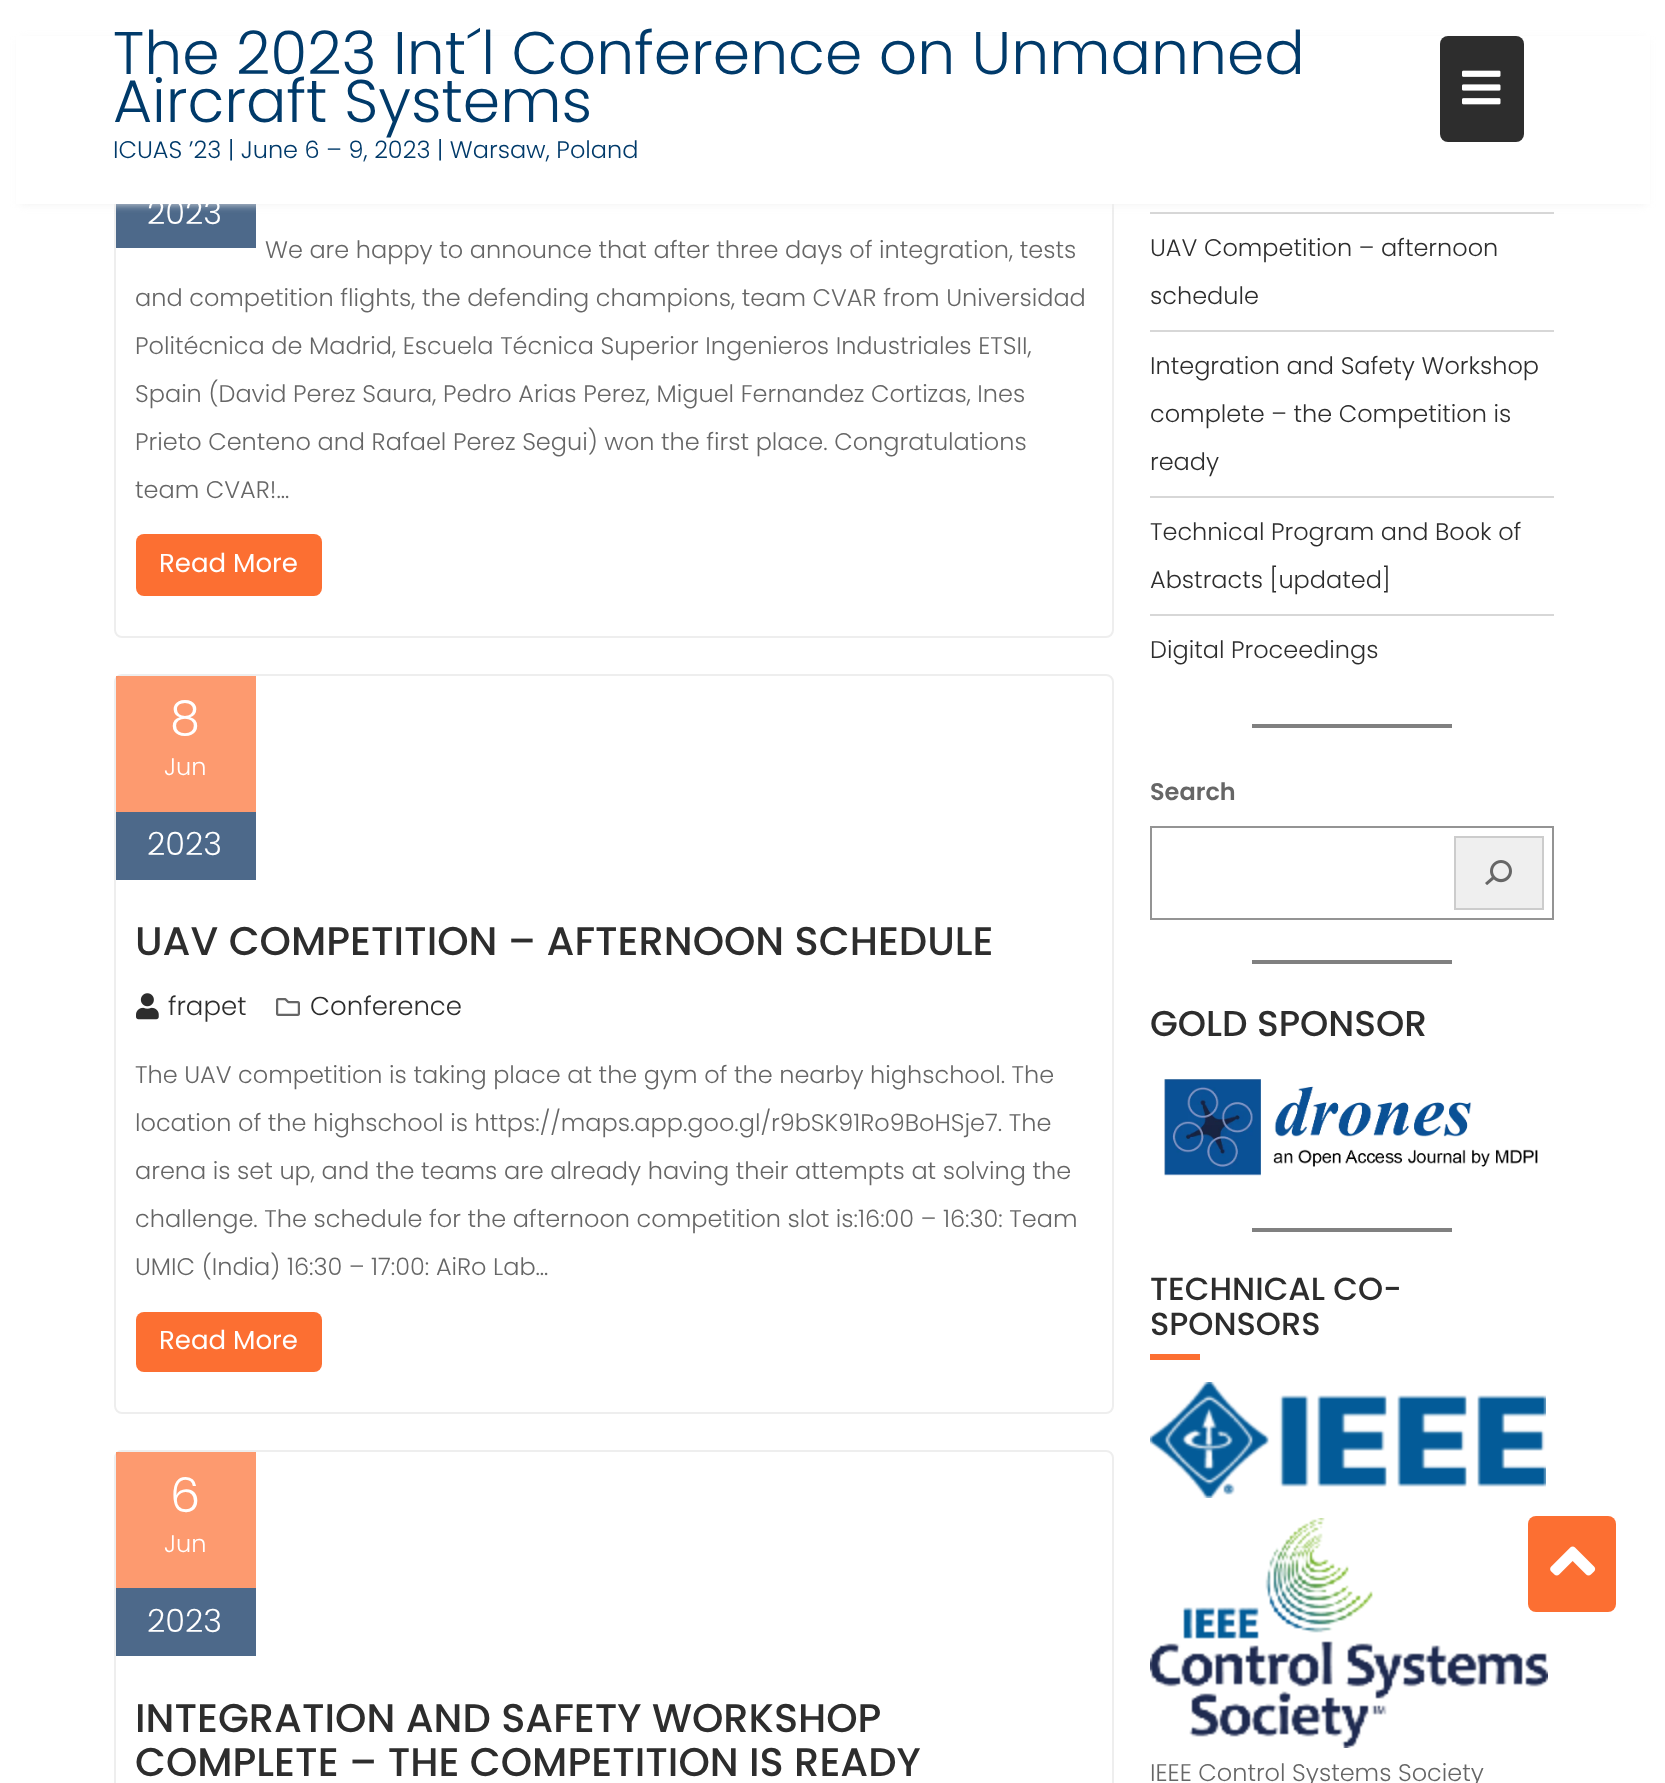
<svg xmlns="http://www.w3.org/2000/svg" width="1665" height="1783">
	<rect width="100%" height="100%" fill="#FFFFFF" />
	<rect x="115" y="43" width="998" height="594" rx="7" fill="none" stroke="#EEEEEE" stroke-width="2" />
	<rect x="116" y="204" width="140" height="44" fill="#4D698A" />
	<rect x="1150" y="212" width="404" height="2" fill="#D7D7D7" />
	<rect x="20" y="40" width="1626" height="164" fill="#EEEEEE" fill-opacity="0.9" filter="blur(4px)" />
	<rect x="16" y="36" width="1634" height="168" fill="#FFFFFF" />
	<g font-family="Poppins" font-size="60" font-weight="300" fill="#003A6A">
		<text x="113" y="74">The 2023 Int´l Conference on Unmanned</text>
		<text x="113" y="122">Aircraft Systems</text>
	</g>
	<rect x="1440" y="36" width="84" height="106" rx="8" fill="#2D2D2D" />
	<image x="1462" y="70" width="39" height="35" href="assets/img1.png" />
	<text x="113" y="158" font-family="Poppins" font-size="24" font-weight="300" fill="#003A6A">ICUAS ’23 | June 6 – 9, 2023 | Warsaw, Poland</text>
	<text x="147" y="224" font-family="Poppins" font-size="32" font-weight="300" fill="#FFFFFF">2023</text>
	<g font-family="Poppins" font-size="24" font-weight="300" fill="#666666">
		<text x="265" y="258">We are happy to announce that after three days of integration, tests</text>
		<text x="135" y="306">and competition flights, the defending champions, team CVAR from Universidad</text>
		<text x="135" y="354">Politécnica de Madrid, Escuela Técnica Superior Ingenieros Industriales ETSII,</text>
		<text x="135" y="402">Spain (David Perez Saura, Pedro Arias Perez, Miguel Fernandez Cortizas, Ines</text>
		<text x="135" y="450">Prieto Centeno and Rafael Perez Segui) won the first place. Congratulations</text>
		<text x="135" y="498">team CVAR!…</text>
	</g>
	<rect x="136" y="534" width="186" height="62" rx="8" fill="#FC6F32" />
	<text x="159" y="572" font-family="Poppins" font-size="26" fill="#FFFFFF">Read More</text>
	<rect x="115" y="675" width="998" height="738" rx="7" fill="none" stroke="#EEEEEE" stroke-width="2" />
	<rect x="116" y="676" width="140" height="136" fill="#FC6F32" fill-opacity="0.7" />
	<text x="170" y="735" font-family="Poppins" font-size="48" font-weight="300" fill="#FFFFFF">8</text>
	<text x="164" y="775" font-family="Poppins" font-size="24" font-weight="300" fill="#FFFFFF">Jun</text>
	<rect x="116" y="812" width="140" height="68" fill="#4D698A" />
	<text x="147" y="855" font-family="Poppins" font-size="32" font-weight="300" fill="#FFFFFF">2023</text>
	<text x="135" y="955" font-family="Poppins" font-size="40" font-weight="500" fill="#2D2D2D">UAV COMPETITION – AFTERNOON SCHEDULE</text>
	<image x="136" y="993" width="23" height="27" href="assets/img2.png" />
	<text x="168" y="1015" font-family="Poppins" font-size="26" font-weight="300" fill="#2D2D2D">frapet</text>
	<image x="276" y="998" width="24" height="18" href="assets/img3.png" />
	<text x="310" y="1015" font-family="Poppins" font-size="26" font-weight="300" fill="#2D2D2D">Conference</text>
	<g font-family="Poppins" font-size="24" font-weight="300" fill="#666666">
		<text x="135" y="1083">The UAV competition is taking place at the gym of the nearby highschool. The</text>
		<text x="135" y="1131">location of the highschool is https://maps.app.goo.gl/r9bSK91Ro9BoHSje7. The</text>
		<text x="135" y="1179">arena is set up, and the teams are already having their attempts at solving the</text>
		<text x="135" y="1227">challenge. The schedule for the afternoon competition slot is:16:00 – 16:30: Team</text>
		<text x="135" y="1275">UMIC (India) 16:30 – 17:00: AiRo Lab…</text>
	</g>
	<rect x="136" y="1312" width="186" height="60" rx="8" fill="#FC6F32" />
	<text x="159" y="1349" font-family="Poppins" font-size="26" fill="#FFFFFF">Read More</text>
	<rect x="115" y="1451" width="998" height="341" rx="7" fill="none" stroke="#EEEEEE" stroke-width="2" />
	<rect x="116" y="1452" width="140" height="136" fill="#FC6F32" fill-opacity="0.7" />
	<text x="170" y="1512" font-family="Poppins" font-size="48" font-weight="300" fill="#FFFFFF">6</text>
	<text x="164" y="1552" font-family="Poppins" font-size="24" font-weight="300" fill="#FFFFFF">Jun</text>
	<rect x="116" y="1588" width="140" height="68" fill="#4D698A" />
	<text x="147" y="1632" font-family="Poppins" font-size="32" font-weight="300" fill="#FFFFFF">2023</text>
	<g font-family="Poppins" font-size="40" font-weight="500" fill="#2D2D2D">
		<text x="135" y="1732">INTEGRATION AND SAFETY WORKSHOP</text>
		<text x="135" y="1776">COMPLETE – THE COMPETITION IS READY</text>
	</g>
	<g font-family="Poppins" font-size="24" font-weight="300" fill="#2D2D2D">
		<text x="1150" y="256">UAV Competition – afternoon</text>
		<text x="1150" y="304">schedule</text>
	</g>
	<rect x="1150" y="330" width="404" height="2" fill="#D7D7D7" />
	<g font-family="Poppins" font-size="24" font-weight="300" fill="#2D2D2D">
		<text x="1150" y="374">Integration and Safety Workshop</text>
		<text x="1150" y="422">complete – the Competition is</text>
		<text x="1150" y="470">ready</text>
	</g>
	<rect x="1150" y="496" width="404" height="2" fill="#D7D7D7" />
	<g font-family="Poppins" font-size="24" font-weight="300" fill="#2D2D2D">
		<text x="1150" y="540">Technical Program and Book of</text>
		<text x="1150" y="588">Abstracts [updated]</text>
	</g>
	<rect x="1150" y="614" width="404" height="2" fill="#D7D7D7" />
	<text x="1150" y="658" font-family="Poppins" font-size="24" font-weight="300" fill="#2D2D2D">Digital Proceedings</text>
	<rect x="1252" y="724" width="200" height="4" fill="#808080" />
	<text x="1150" y="800" font-family="Poppins" font-size="24" font-weight="600" fill="#666666">Search</text>
	<rect x="1151" y="827" width="402" height="92" fill="none" stroke="#949494" stroke-width="2" />
	<rect x="1455" y="837" width="88" height="72" fill="#EFEFEF" stroke="#CCCCCC" stroke-width="2" />
	<image x="1485" y="860" width="27" height="25" href="assets/img4.png" />
	<rect x="1252" y="960" width="200" height="4" fill="#808080" />
	<text x="1150" y="1036" font-family="Poppins" font-size="36" font-weight="500" fill="#2D2D2D">GOLD SPONSOR</text>
	<image x="1164" y="1079" width="374" height="97" href="assets/img5.png" />
	<rect x="1252" y="1228" width="200" height="4" fill="#808080" />
	<g font-family="Poppins" font-size="32" font-weight="500" fill="#2D2D2D">
		<text x="1150" y="1300">TECHNICAL CO-</text>
		<text x="1150" y="1335">SPONSORS</text>
	</g>
	<rect x="1150" y="1354" width="50" height="6" fill="#FC6F32" />
	<image x="1150" y="1382" width="396" height="116" href="assets/img6.png" />
	<image x="1150" y="1518" width="398" height="230" href="assets/img7.png" />
	<text x="1150" y="1781" font-family="Poppins" font-size="24" font-weight="300" fill="#666666">IEEE Control Systems Society</text>
	<rect x="1528" y="1516" width="88" height="96" rx="8" fill="#FC6F32" />
	<image x="1550" y="1546" width="46" height="30" href="assets/img8.png" />
</svg>
